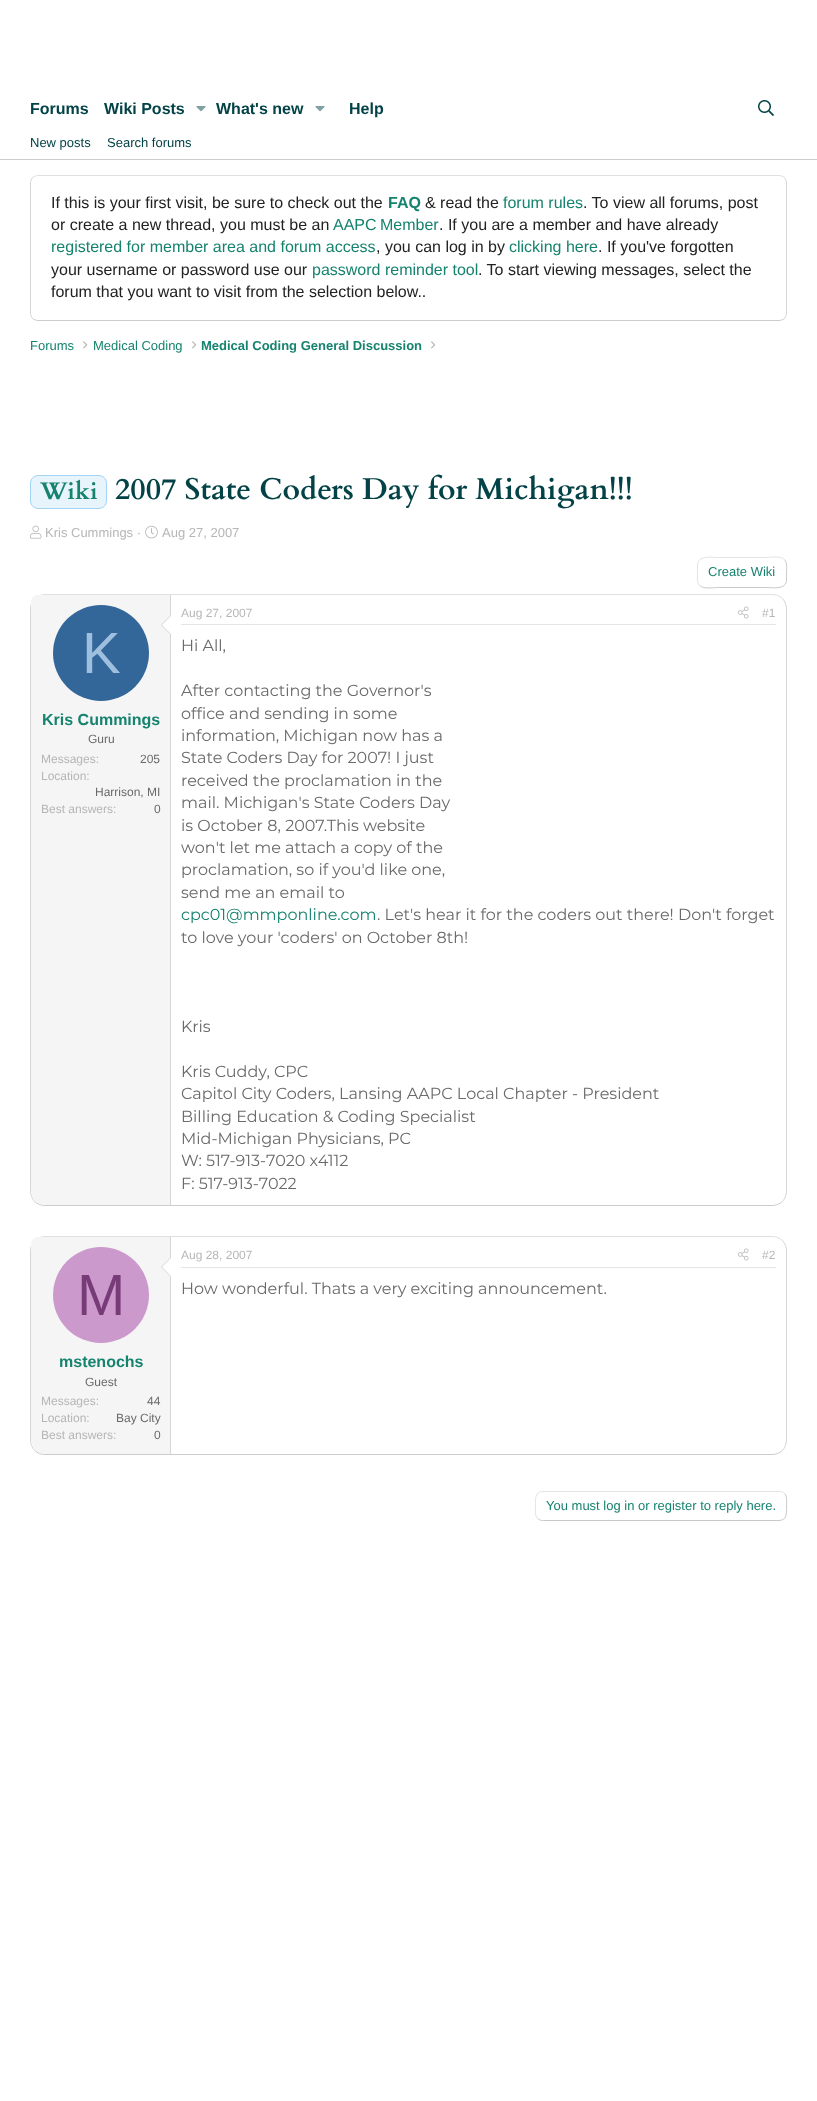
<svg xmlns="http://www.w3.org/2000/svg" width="817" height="2101">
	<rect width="100%" height="100%" fill="#FFFFFF" />
	<g font-family="Liberation Sans" font-size="16" font-weight="700" fill="#034246">
		<text x="30" y="114">Forums</text>
		<text x="104" y="114">Wiki Posts</text>
	</g>
	<image x="196" y="106" width="10" height="6" href="assets/img1.png" />
	<text x="216" y="114" font-family="Liberation Sans" font-size="16" font-weight="700" fill="#034246">What's new</text>
	<image x="315" y="106" width="10" height="6" href="assets/img1.png" />
	<text x="349" y="114" font-family="Liberation Sans" font-size="16" font-weight="700" fill="#034246">Help</text>
	<image x="758" y="100" width="16" height="16" href="assets/img2.png" />
	<rect x="0" y="159" width="817" height="1" fill="#CCCCCC" />
	<g font-family="Liberation Sans" font-size="13" fill="#034246">
		<text x="30" y="147">New posts</text>
		<text x="107" y="147">Search forums</text>
	</g>
	<path d="M32.5 177.5C34 176.5 36 175.5 38 175.5H779C781 175.5 783 176.5 784.5 177.5" fill="none" stroke="#E0E0E0" />
	<path d="M784.5 177.5C785.5 179 786.5 181 786.5 183V313C786.5 315 785.5 317 784.5 318.5" fill="none" stroke="#D6D6D6" />
	<path d="M784.5 318.5C783 319.5 781 320.5 779 320.5H38C36 320.5 34 319.5 32.5 318.5" fill="none" stroke="#CCCCCC" />
	<path d="M32.5 318.5C31.5 317 30.5 315 30.5 313V183C30.5 181 31.5 179 32.5 177.5" fill="none" stroke="#D6D6D6" />
	<text x="51" y="208" font-family="Liberation Sans" font-size="16" fill="#222222">If this is your first visit, be sure to check out the</text>
	<text x="388" y="208" font-family="Liberation Sans" font-size="16" font-weight="700" fill="#16836F">FAQ</text>
	<text x="425" y="208" font-family="Liberation Sans" font-size="16" fill="#222222">&amp; read the</text>
	<text x="503" y="208" font-family="Liberation Sans" font-size="16" fill="#16836F">forum rules</text>
	<g font-family="Liberation Sans" font-size="16" fill="#222222">
		<text x="583" y="208">. To view all forums, post</text>
		<text x="51" y="230">or create a new thread, you must be an</text>
	</g>
	<text x="333" y="230" word-spacing="-1" font-family="Liberation Sans" font-size="16" fill="#16836F">AAPC Member</text>
	<text x="439" y="230" font-family="Liberation Sans" font-size="16" fill="#222222">. If you are a member and have already</text>
	<text x="51" y="252" font-family="Liberation Sans" font-size="16" fill="#16836F">registered for member area and forum access</text>
	<text x="376" y="252" font-family="Liberation Sans" font-size="16" fill="#222222">, you can log in by</text>
	<text x="509" y="252" font-family="Liberation Sans" font-size="16" fill="#16836F">clicking here</text>
	<g font-family="Liberation Sans" font-size="16" fill="#222222">
		<text x="598" y="252">. If you've forgotten</text>
		<text x="51" y="275">your username or password use our</text>
	</g>
	<text x="312" y="275" font-family="Liberation Sans" font-size="16" fill="#16836F">password reminder tool</text>
	<g font-family="Liberation Sans" font-size="16" fill="#222222">
		<text x="478" y="275">. To start viewing messages, select the</text>
		<text x="51" y="297">forum that you want to visit from the selection below..</text>
	</g>
	<text x="30" y="350" font-family="Liberation Sans" font-size="13" fill="#16836F">Forums</text>
	<image x="83" y="341" width="5" height="8" href="assets/img3.png" />
	<text x="93" y="350" font-family="Liberation Sans" font-size="13" fill="#16836F">Medical Coding</text>
	<image x="192" y="341" width="4" height="8" href="assets/img4.png" />
	<text x="201" y="350" font-family="Liberation Sans" font-size="13" font-weight="700" fill="#16836F">Medical Coding General Discussion</text>
	<image x="431" y="341" width="5" height="8" href="assets/img3.png" />
	<rect x="30.5" y="475.5" width="76" height="33" rx="7.5" fill="#E8F4FC" stroke="#A3D4F5" />
	<text x="40" y="499" font-family="Cardo" font-size="24" font-weight="700" fill="#16836F">Wiki</text>
	<text x="115" y="499" font-family="Cardo" font-size="30" font-weight="700" fill="#034246">2007 State Coders Day for Michigan!!!</text>
	<image x="30" y="525" width="12" height="14" href="assets/img5.png" />
	<text x="45" y="537" font-family="Liberation Sans" font-size="13" fill="#B6B6B6">Kris Cummings ·</text>
	<image x="145" y="525" width="13" height="14" href="assets/img6.png" />
	<text x="162" y="537" font-family="Liberation Sans" font-size="13" fill="#B6B6B6">Aug 27, 2007</text>
	<path d="M784.5 559.5C787.5 563 786.5 568.5 786.5 572.5V581.5C784.5 590 772 587.5 766.5 587.5H717.5C713.5 587.5 704 589.5 699.5 585.5" fill="none" stroke="#C9C9C9" />
	<path d="M699.5 585.5C696.5 582 697.5 576.5 697.5 572.5V563.5C699.5 555 712 557.5 717.5 557.5H766.5C770.5 557.5 780 555.5 784.5 559.5" fill="none" stroke="#E3E3E3" />
	<text x="708" y="576" font-family="Liberation Sans" font-size="13" fill="#16836F">Create Wiki</text>
	<path d="M34.5 598.5C37.5 596 41 594.5 45 594.5H772C776 594.5 779.5 596 782.5 598.5" fill="none" stroke="#E0E0E0" />
	<path d="M782.5 598.5C785 601.5 786.5 605 786.5 609V1191C786.5 1195 785 1198.5 782.5 1201.5" fill="none" stroke="#D6D6D6" />
	<path d="M782.5 1201.5C779.5 1204 776 1205.5 772 1205.5H45C41 1205.5 37.5 1204 34.5 1201.5" fill="none" stroke="#CCCCCC" />
	<path d="M34.5 1201.5C32 1198.5 30.5 1195 30.5 1191V609C30.5 605 32 601.5 34.5 598.5" fill="none" stroke="#D6D6D6" />
	<path d="M38 595H171V1205H46C37.5 1205 31 1198.5 31 1190V602C31 598 34 595 38 595Z" fill="#F5F5F5" />
	<rect x="170" y="595" width="1" height="610" fill="#D6D6D6" />
	<path d="M171 615V635L161 625Z" fill="#D6D6D6" />
	<path d="M171 616V634L162 625Z" fill="#FFFFFF" />
	<circle cx="101" cy="653" r="48" fill="#336699" />
	<text x="82" y="673" font-family="Liberation Sans" font-size="58" fill="#9FBFDF">K</text>
	<text x="42" y="725" font-family="Liberation Sans" font-size="16" font-weight="700" fill="#16836F">Kris Cummings</text>
	<text x="88" y="743" font-family="Liberation Sans" font-size="12" fill="#6A6A6A">Guru</text>
	<text x="41" y="763" font-family="Liberation Sans" font-size="12" fill="#B6B6B6">Messages:</text>
	<text x="140" y="763" font-family="Liberation Sans" font-size="12" fill="#6A6A6A">205</text>
	<text x="41" y="780" font-family="Liberation Sans" font-size="12" fill="#B6B6B6">Location:</text>
	<text x="95" y="796" font-family="Liberation Sans" font-size="12" fill="#6A6A6A">Harrison, MI</text>
	<text x="41" y="813" font-family="Liberation Sans" font-size="12" fill="#B6B6B6">Best answers:</text>
	<text x="154" y="813" font-family="Liberation Sans" font-size="12" fill="#6A6A6A">0</text>
	<rect x="181" y="624" width="595" height="1" fill="#E5E5E5" />
	<text x="181" y="617" font-family="Liberation Sans" font-size="12" fill="#B6B6B6">Aug 27, 2007</text>
	<image x="738" y="606" width="11" height="13" href="assets/img7.png" />
	<text x="762" y="617" font-family="Liberation Sans" font-size="12" fill="#B6B6B6">#1</text>
	<g font-family="Montserrat" font-size="16" fill="#6A6A6A">
		<text x="181" y="651">Hi All,</text>
		<text x="181" y="696">After contacting the Governor's</text>
		<text x="181" y="719">office and sending in some</text>
		<text x="181" y="741">information, Michigan now has a</text>
		<text x="181" y="763">State Coders Day for 2007! I just</text>
		<text x="181" y="786">received the proclamation in the</text>
		<text x="181" y="808">mail. Michigan's State Coders Day</text>
		<text x="181" y="831">is October 8, 2007.This website</text>
		<text x="181" y="853">won't let me attach a copy of the</text>
		<text x="181" y="875">proclamation, so if you'd like one,</text>
		<text x="181" y="898">send me an email to</text>
	</g>
	<text x="181" y="920" font-family="Montserrat" font-size="16" fill="#16836F">cpc01@mmponline.com</text>
	<g font-family="Montserrat" font-size="16" fill="#6A6A6A">
		<text x="377" y="920">. Let's hear it for the coders out there! Don't forget</text>
		<text x="181" y="943">to love your 'coders' on October 8th!</text>
		<text x="181" y="1032">Kris</text>
		<text x="181" y="1077">Kris Cuddy, CPC</text>
		<text x="181" y="1099">Capitol City Coders, Lansing AAPC Local Chapter - President</text>
		<text x="181" y="1122">Billing Education &amp; Coding Specialist</text>
		<text x="181" y="1144">Mid-Michigan Physicians, PC</text>
		<text x="181" y="1166">W: 517-913-7020 x4112</text>
		<text x="181" y="1189">F: 517-913-7022</text>
	</g>
	<path d="M34.5 1240.5C37.5 1238 41 1236.5 45 1236.5H772C776 1236.5 779.5 1238 782.5 1240.5" fill="none" stroke="#E0E0E0" />
	<path d="M782.5 1240.5C785 1243.5 786.5 1247 786.5 1251V1440C786.5 1444 785 1447.5 782.5 1450.5" fill="none" stroke="#D6D6D6" />
	<path d="M782.5 1450.5C779.5 1453 776 1454.5 772 1454.5H45C41 1454.5 37.5 1453 34.5 1450.5" fill="none" stroke="#CCCCCC" />
	<path d="M34.5 1450.5C32 1447.5 30.5 1444 30.5 1440V1251C30.5 1247 32 1243.5 34.5 1240.5" fill="none" stroke="#D6D6D6" />
	<path d="M38 1237H171V1454H46C37.5 1454 31 1447.5 31 1439V1244C31 1240 34 1237 38 1237Z" fill="#F5F5F5" />
	<rect x="170" y="1237" width="1" height="217" fill="#D6D6D6" />
	<path d="M171 1257V1277L161 1267Z" fill="#D6D6D6" />
	<path d="M171 1258V1276L162 1267Z" fill="#FFFFFF" />
	<circle cx="101" cy="1295" r="48" fill="#CC99CC" />
	<text x="77" y="1315" font-family="Liberation Sans" font-size="58" fill="#773C77">M</text>
	<text x="59" y="1367" font-family="Liberation Sans" font-size="16" font-weight="700" fill="#16836F">mstenochs</text>
	<text x="85" y="1386" font-family="Liberation Sans" font-size="12" fill="#6A6A6A">Guest</text>
	<text x="41" y="1405" font-family="Liberation Sans" font-size="12" fill="#B6B6B6">Messages:</text>
	<text x="147" y="1405" font-family="Liberation Sans" font-size="12" fill="#6A6A6A">44</text>
	<text x="41" y="1422" font-family="Liberation Sans" font-size="12" fill="#B6B6B6">Location:</text>
	<text x="116" y="1422" font-family="Liberation Sans" font-size="12" fill="#6A6A6A">Bay City</text>
	<text x="41" y="1439" font-family="Liberation Sans" font-size="12" fill="#B6B6B6">Best answers:</text>
	<text x="154" y="1439" font-family="Liberation Sans" font-size="12" fill="#6A6A6A">0</text>
	<rect x="181" y="1267" width="595" height="1" fill="#E5E5E5" />
	<text x="181" y="1259" font-family="Liberation Sans" font-size="12" fill="#B6B6B6">Aug 28, 2007</text>
	<image x="738" y="1248" width="11" height="13" href="assets/img7.png" />
	<text x="762" y="1259" font-family="Liberation Sans" font-size="12" fill="#B6B6B6">#2</text>
	<text x="181" y="1294" font-family="Montserrat" font-size="16" fill="#6A6A6A">How wonderful. Thats a very exciting announcement.</text>
	<path d="M784.5 1493.5C787.5 1497 786.5 1502 786.5 1506C786.5 1512 787.5 1520.5 779 1520.5H542.5C540.5 1520.5 539 1519.5 537.5 1518.5" fill="none" stroke="#C9C9C9" />
	<path d="M537.5 1518.5C534.5 1515 535.5 1510 535.5 1506C535.5 1500 534.5 1491.5 543 1491.5H779.5C781.5 1491.5 783 1492.5 784.5 1493.5" fill="none" stroke="#E3E3E3" />
	<text x="546" y="1510" font-family="Liberation Sans" font-size="13" fill="#16836F">You must log in or register to reply here.</text>
</svg>
